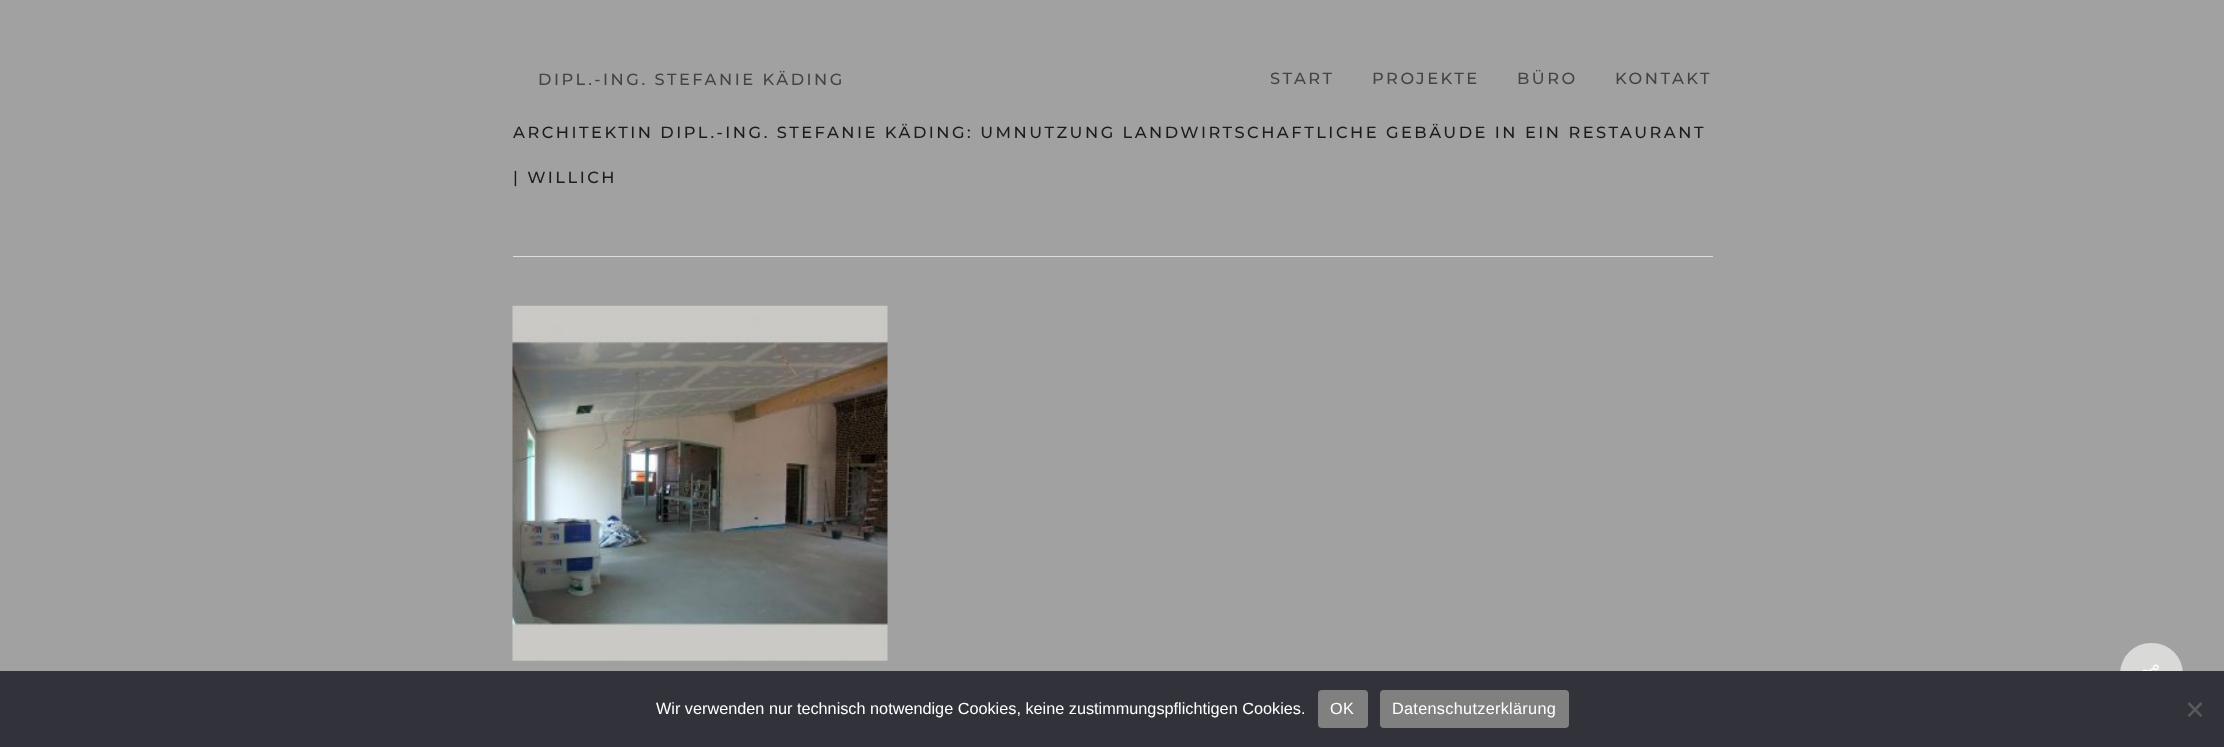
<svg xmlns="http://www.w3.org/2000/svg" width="2224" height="747">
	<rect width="100%" height="100%" fill="#A1A1A1" />
	<g font-family="Montserrat" font-size="16.25" font-weight="500" letter-spacing="2.5" fill="#444444">
		<text x="538" y="85">DIPL.-ING. STEFANIE KÄDING</text>
		<text x="1270" y="84">START</text>
		<text x="1372" y="84">PROJEKTE</text>
		<text x="1517" y="84">BÜRO</text>
		<text x="1615" y="84">KONTAKT</text>
	</g>
	<rect x="513" y="256" width="1200" height="1" fill="#DDDDDD" />
	<g font-family="Montserrat" font-size="16.25" font-weight="500" letter-spacing="2.5" fill="#1C1C1C">
		<text x="513" y="138">ARCHITEKTIN DIPL.-ING. STEFANIE KÄDING: UMNUTZUNG LANDWIRTSCHAFTLICHE GEBÄUDE IN EIN RESTAURANT</text>
		<text x="513" y="183">| WILLICH</text>
	</g>
	<image x="512" y="305" width="376" height="356" href="assets/img1.png" />
	<rect x="2120" y="643" width="63" height="62" rx="31" fill="#D9D9D7" />
	<image x="2142" y="664" width="17" height="7" href="assets/img2.png" />
	<rect x="0" y="671" width="2224" height="76" fill="#32323A" />
	<text x="656" y="714" font-family="Liberation Sans" font-size="16.25" fill="#FFFFFF">Wir verwenden nur technisch notwendige Cookies, keine zustimmungspflichtigen Cookies.</text>
	<rect x="1318" y="690" width="50" height="38" rx="4" fill="#808080" />
	<text x="1330" y="714" font-family="Liberation Sans" font-size="16.25" letter-spacing="0.3" fill="#FFFFFF">OK</text>
	<rect x="1380" y="690" width="189" height="38" rx="4" fill="#808080" />
	<text x="1392" y="714" font-family="Liberation Sans" font-size="16.25" letter-spacing="0.3" fill="#FFFFFF">Datenschutzerklärung</text>
	<path d="M2200.5 702L2202.5 704L2189.5 717L2187.5 715.5Z" fill="#59595D" />
	<path d="M2187.5 704L2189.5 702L2202.5 715.5L2200.5 717Z" fill="#59595D" />
</svg>
